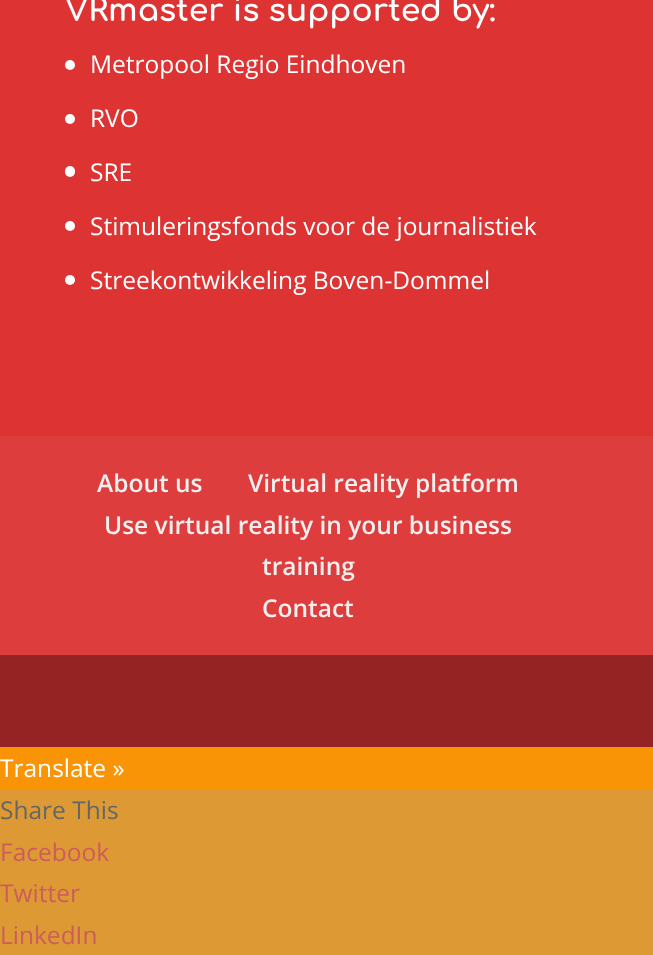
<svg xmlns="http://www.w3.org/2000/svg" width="653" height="955">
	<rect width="100%" height="100%" fill="#DD9933" />
	<rect x="0" y="0" width="653" height="436" fill="#DD3333" />
	<text x="65" y="21" font-family="Comfortaa" font-size="31.5" font-weight="700" fill="#FFFFFF">VRmaster is supported by:</text>
	<circle cx="70" cy="65" r="5" fill="#FFFFFF" />
	<text x="90" y="73" font-family="Open Sans" font-size="24.5" fill="#FFFFFF">Metropool Regio Eindhoven</text>
	<circle cx="70" cy="119" r="5" fill="#FFFFFF" />
	<text x="90" y="127" font-family="Open Sans" font-size="24.5" fill="#FFFFFF">RVO</text>
	<rect x="65" y="166" width="10" height="11" rx="5" fill="#FFFFFF" />
	<text x="90" y="181" font-family="Open Sans" font-size="24.5" fill="#FFFFFF">SRE</text>
	<circle cx="70" cy="226" r="5" fill="#FFFFFF" />
	<text x="90" y="235" font-family="Open Sans" font-size="24.5" fill="#FFFFFF">Stimuleringsfonds voor de journalistiek</text>
	<circle cx="70" cy="280" r="5" fill="#FFFFFF" />
	<text x="90" y="289" font-family="Open Sans" font-size="24.5" fill="#FFFFFF">Streekontwikkeling Boven-Dommel</text>
	<rect x="0" y="436" width="653" height="219" fill="#DE3D3D" />
	<g font-family="Open Sans" font-size="24.5" font-weight="600" fill="#EFEFEF">
		<text x="97" y="492">About us</text>
		<text x="248" y="492">Virtual reality platform</text>
		<text x="104" y="534">Use virtual reality in your business</text>
		<text x="262" y="575">training</text>
		<text x="262" y="617">Contact</text>
	</g>
	<rect x="0" y="655" width="653" height="92" fill="#962323" />
	<rect x="0" y="747" width="653" height="42" fill="#F89406" />
	<text x="0" y="777" font-family="Open Sans" font-size="24.5" fill="#FFFFFF">Translate »</text>
	<text x="0" y="819" font-family="Open Sans" font-size="24.5" fill="#666666">Share This</text>
	<g font-family="Open Sans" font-size="24.5" fill="#CD5C5C">
		<text x="0" y="861">Facebook</text>
		<text x="0" y="902">Twitter</text>
		<text x="0" y="944">LinkedIn</text>
	</g>
</svg>
